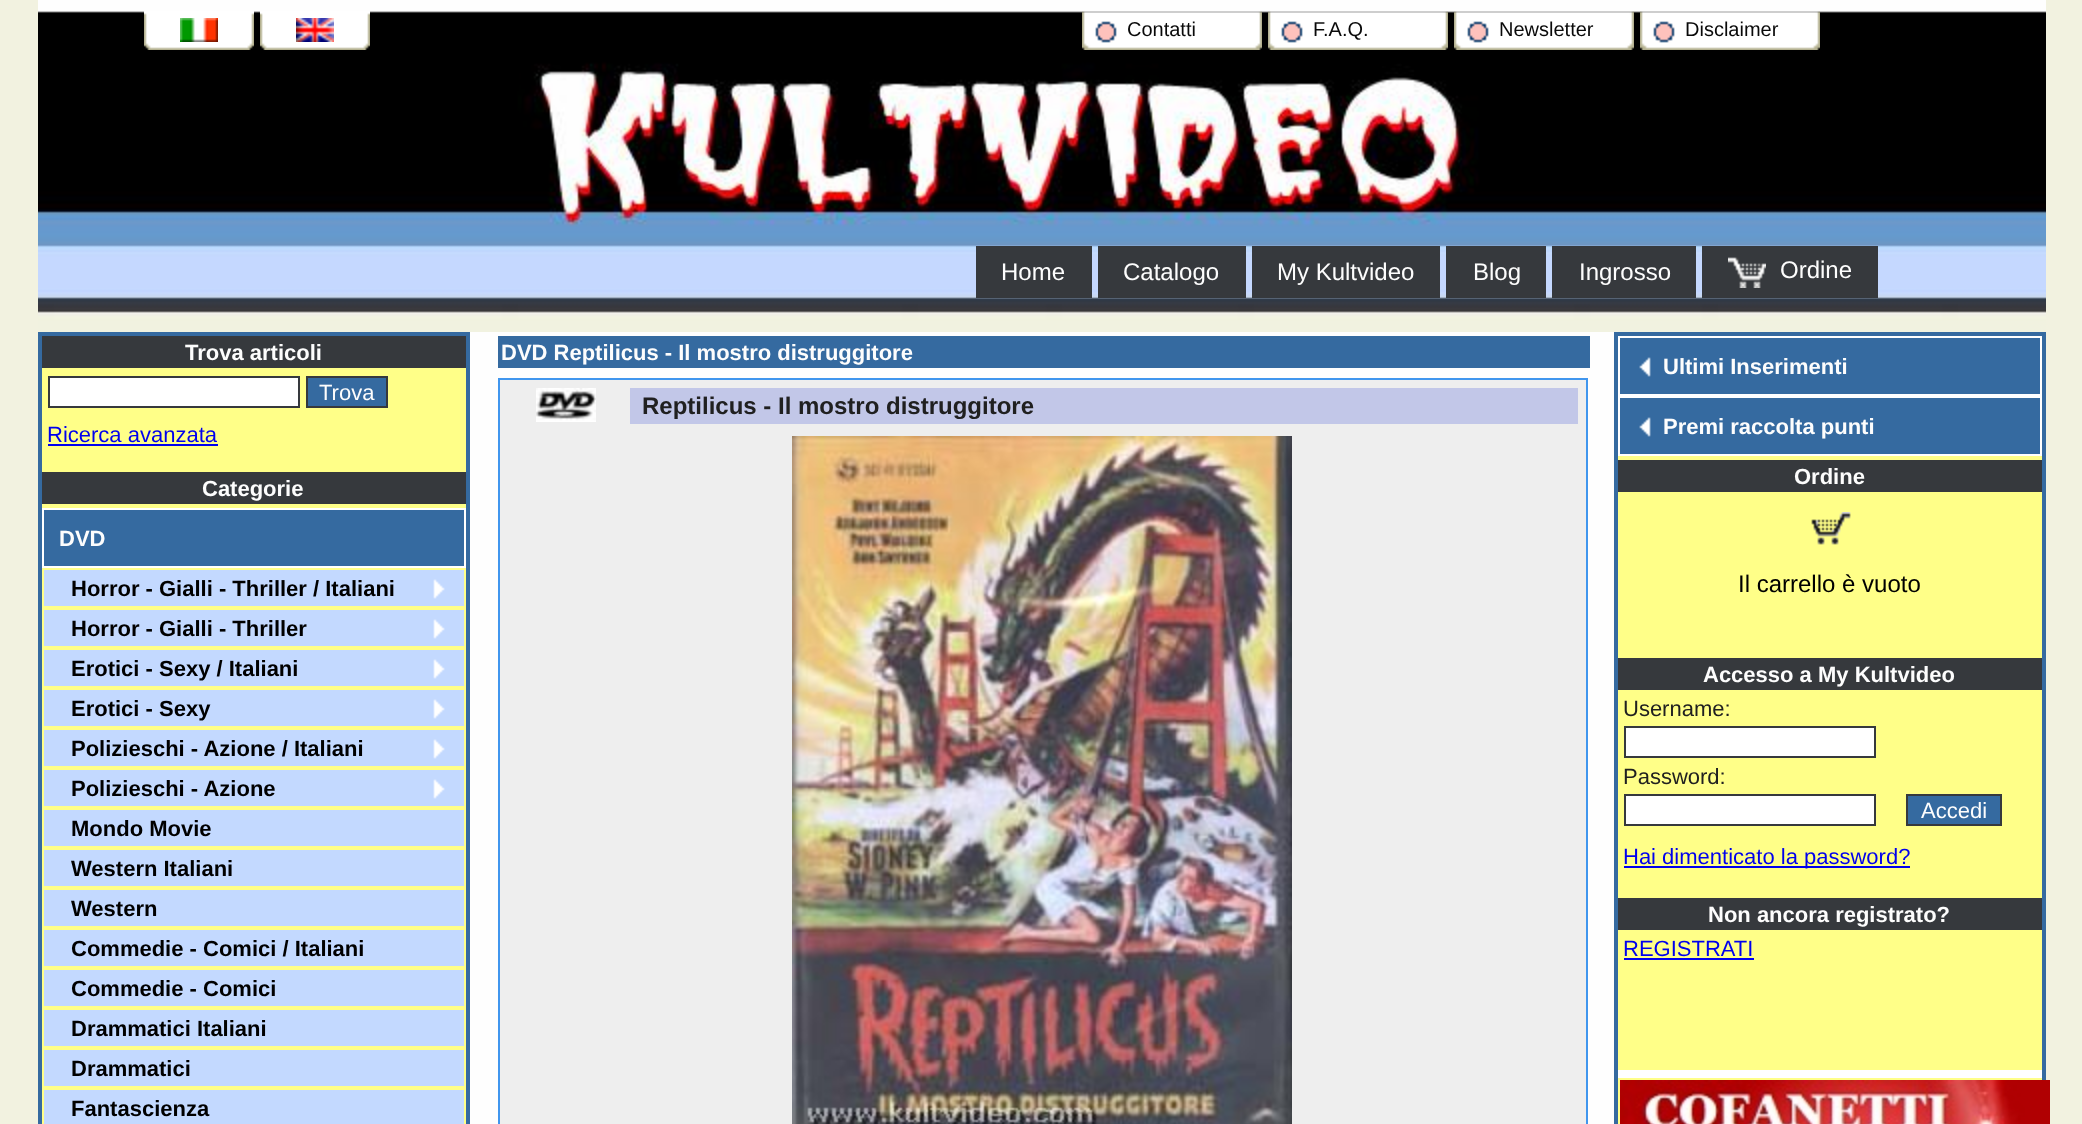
<svg xmlns="http://www.w3.org/2000/svg" width="2082" height="1124">
	<rect width="100%" height="100%" fill="#F2F2E0" />
	<rect x="38" y="0" width="2008" height="11" fill="#FEFEFE" />
	<image x="38" y="11" width="2008" height="321" href="assets/img1.png" />
	<image x="144" y="11" width="110" height="39" href="assets/img2.png" />
	<image x="180" y="18" width="38" height="24" href="assets/img3.png" />
	<image x="260" y="11" width="110" height="39" href="assets/img2.png" />
	<image x="296" y="18" width="38" height="24" href="assets/img4.png" />
	<image x="1082" y="11" width="180" height="39" href="assets/img5.png" />
	<text x="1127" y="36" font-family="Liberation Sans" font-size="20" fill="#090909">Contatti</text>
	<image x="1268" y="11" width="180" height="39" href="assets/img5.png" />
	<text x="1313" y="36" font-family="Liberation Sans" font-size="20" fill="#090909">F.A.Q.</text>
	<image x="1454" y="11" width="180" height="39" href="assets/img5.png" />
	<text x="1499" y="36" font-family="Liberation Sans" font-size="20" fill="#090909">Newsletter</text>
	<image x="1640" y="11" width="180" height="39" href="assets/img5.png" />
	<text x="1685" y="36" font-family="Liberation Sans" font-size="20" fill="#090909">Disclaimer</text>
	<rect x="976" y="246" width="116" height="52" fill="#36393D" />
	<text x="1001" y="280" font-family="Liberation Sans" font-size="24" fill="#FDFDFD">Home</text>
	<rect x="1098" y="246" width="148" height="52" fill="#36393D" />
	<text x="1123" y="280" font-family="Liberation Sans" font-size="24" fill="#FDFDFD">Catalogo</text>
	<rect x="1252" y="246" width="188" height="52" fill="#36393D" />
	<text x="1277" y="280" font-family="Liberation Sans" font-size="24" fill="#FDFDFD">My Kultvideo</text>
	<rect x="1446" y="246" width="100" height="52" fill="#36393D" />
	<text x="1473" y="280" font-family="Liberation Sans" font-size="24" fill="#FDFDFD">Blog</text>
	<rect x="1552" y="246" width="144" height="52" fill="#36393D" />
	<text x="1579" y="280" font-family="Liberation Sans" font-size="24" fill="#FDFDFD">Ingrosso</text>
	<rect x="1702" y="246" width="176" height="52" fill="#36393D" />
	<image x="1728" y="257" width="38" height="31" href="assets/img6.png" />
	<text x="1780" y="278" font-family="Liberation Sans" font-size="24" fill="#FDFDFD">Ordine</text>
	<rect x="38" y="332" width="432" height="792" fill="#356AA0" />
	<rect x="42" y="336" width="424" height="32" fill="#36393D" />
	<text x="185" y="360" font-family="Liberation Sans" font-size="22" font-weight="700" fill="#FDFDFD">Trova articoli</text>
	<rect x="42" y="368" width="424" height="104" fill="#FFFF88" />
	<rect x="49" y="377" width="250" height="30" fill="#FFFFFF" stroke="#36393D" stroke-width="2" />
	<rect x="307" y="377" width="80" height="30" fill="#356AA0" stroke="#36393D" stroke-width="2" />
	<text x="319" y="400" font-family="Liberation Sans" font-size="22" fill="#FDFDFD">Trova</text>
	<text x="47" y="442" font-family="Liberation Sans" font-size="22" fill="#0000EE">Ricerca avanzata</text>
	<rect x="48" y="444" width="170" height="2" fill="#0000EE" />
	<rect x="42" y="472" width="424" height="32" fill="#36393D" />
	<text x="202" y="496" font-family="Liberation Sans" font-size="22" font-weight="700" fill="#FDFDFD">Categorie</text>
	<rect x="42" y="504" width="424" height="4" fill="#FFFF88" />
	<rect x="43" y="509" width="422" height="58" fill="none" stroke="#FFFFFF" stroke-width="2" />
	<text x="59" y="546" font-family="Liberation Sans" font-size="22" font-weight="700" fill="#FDFDFD">DVD</text>
	<rect x="44" y="570" width="420" height="36" fill="#C3D9FF" />
	<image x="433" y="579" width="12" height="20" href="assets/img7.png" />
	<rect x="43" y="569" width="422" height="38" fill="none" stroke="#FFFF88" stroke-width="2" />
	<text x="71" y="596" font-family="Liberation Sans" font-size="22" font-weight="700" fill="#000000">Horror - Gialli - Thriller / Italiani</text>
	<rect x="44" y="610" width="420" height="36" fill="#C3D9FF" />
	<image x="433" y="619" width="12" height="20" href="assets/img7.png" />
	<rect x="43" y="609" width="422" height="38" fill="none" stroke="#FFFF88" stroke-width="2" />
	<text x="71" y="636" font-family="Liberation Sans" font-size="22" font-weight="700" fill="#000000">Horror - Gialli - Thriller</text>
	<rect x="44" y="650" width="420" height="36" fill="#C3D9FF" />
	<image x="433" y="659" width="12" height="20" href="assets/img7.png" />
	<rect x="43" y="649" width="422" height="38" fill="none" stroke="#FFFF88" stroke-width="2" />
	<text x="71" y="676" font-family="Liberation Sans" font-size="22" font-weight="700" fill="#000000">Erotici - Sexy / Italiani</text>
	<rect x="44" y="690" width="420" height="36" fill="#C3D9FF" />
	<image x="433" y="699" width="12" height="20" href="assets/img7.png" />
	<rect x="43" y="689" width="422" height="38" fill="none" stroke="#FFFF88" stroke-width="2" />
	<text x="71" y="716" font-family="Liberation Sans" font-size="22" font-weight="700" fill="#000000">Erotici - Sexy</text>
	<rect x="44" y="730" width="420" height="36" fill="#C3D9FF" />
	<image x="433" y="739" width="12" height="20" href="assets/img7.png" />
	<rect x="43" y="729" width="422" height="38" fill="none" stroke="#FFFF88" stroke-width="2" />
	<text x="71" y="756" font-family="Liberation Sans" font-size="22" font-weight="700" fill="#000000">Polizieschi - Azione / Italiani</text>
	<rect x="44" y="770" width="420" height="36" fill="#C3D9FF" />
	<image x="433" y="779" width="12" height="20" href="assets/img7.png" />
	<rect x="43" y="769" width="422" height="38" fill="none" stroke="#FFFF88" stroke-width="2" />
	<text x="71" y="796" font-family="Liberation Sans" font-size="22" font-weight="700" fill="#000000">Polizieschi - Azione</text>
	<rect x="43" y="809" width="422" height="38" fill="#C3D9FF" stroke="#FFFF88" stroke-width="2" />
	<text x="71" y="836" font-family="Liberation Sans" font-size="22" font-weight="700" fill="#000000">Mondo Movie</text>
	<rect x="43" y="849" width="422" height="38" fill="#C3D9FF" stroke="#FFFF88" stroke-width="2" />
	<text x="71" y="876" font-family="Liberation Sans" font-size="22" font-weight="700" fill="#000000">Western Italiani</text>
	<rect x="43" y="889" width="422" height="38" fill="#C3D9FF" stroke="#FFFF88" stroke-width="2" />
	<text x="71" y="916" font-family="Liberation Sans" font-size="22" font-weight="700" fill="#000000">Western</text>
	<rect x="43" y="929" width="422" height="38" fill="#C3D9FF" stroke="#FFFF88" stroke-width="2" />
	<text x="71" y="956" font-family="Liberation Sans" font-size="22" font-weight="700" fill="#000000">Commedie - Comici / Italiani</text>
	<rect x="43" y="969" width="422" height="38" fill="#C3D9FF" stroke="#FFFF88" stroke-width="2" />
	<text x="71" y="996" font-family="Liberation Sans" font-size="22" font-weight="700" fill="#000000">Commedie - Comici</text>
	<rect x="43" y="1009" width="422" height="38" fill="#C3D9FF" stroke="#FFFF88" stroke-width="2" />
	<text x="71" y="1036" font-family="Liberation Sans" font-size="22" font-weight="700" fill="#000000">Drammatici Italiani</text>
	<rect x="43" y="1049" width="422" height="38" fill="#C3D9FF" stroke="#FFFF88" stroke-width="2" />
	<text x="71" y="1076" font-family="Liberation Sans" font-size="22" font-weight="700" fill="#000000">Drammatici</text>
	<rect x="43" y="1089" width="422" height="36" fill="#C3D9FF" stroke="#FFFF88" stroke-width="2" />
	<text x="71" y="1116" font-family="Liberation Sans" font-size="22" font-weight="700" fill="#000000">Fantascienza</text>
	<rect x="470" y="332" width="1144" height="792" fill="#FEFEFE" />
	<rect x="498" y="336" width="1092" height="32" fill="#356AA0" />
	<text x="501" y="360" font-family="Liberation Sans" font-size="22" font-weight="700" fill="#FDFDFD">DVD Reptilicus - Il mostro distruggitore</text>
	<rect x="499" y="379" width="1088" height="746" fill="#EEEEEE" stroke="#4096EE" stroke-width="2" />
	<image x="536" y="388" width="60" height="34" href="assets/img8.png" />
	<rect x="630" y="388" width="948" height="36" fill="#C2C7E8" />
	<text x="642" y="414" font-family="Liberation Sans" font-size="24" font-weight="700" fill="#202020">Reptilicus - Il mostro distruggitore</text>
	<image x="792" y="436" width="500" height="688" href="assets/img9.png" />
	<rect x="1614" y="332" width="432" height="792" fill="#356AA0" />
	<rect x="1618" y="456" width="424" height="4" fill="#FFFF88" />
	<image x="1639" y="357" width="12" height="20" href="assets/img10.png" />
	<rect x="1619" y="337" width="422" height="58" fill="none" stroke="#FFFFFF" stroke-width="2" />
	<text x="1663" y="374" font-family="Liberation Sans" font-size="22" font-weight="700" fill="#FDFDFD">Ultimi Inserimenti</text>
	<image x="1639" y="417" width="12" height="20" href="assets/img10.png" />
	<rect x="1619" y="397" width="422" height="58" fill="none" stroke="#FFFFFF" stroke-width="2" />
	<text x="1663" y="434" font-family="Liberation Sans" font-size="22" font-weight="700" fill="#FDFDFD">Premi raccolta punti</text>
	<rect x="1618" y="460" width="424" height="32" fill="#36393D" />
	<text x="1794" y="484" font-family="Liberation Sans" font-size="22" font-weight="700" fill="#FDFDFD">Ordine</text>
	<rect x="1618" y="492" width="424" height="166" fill="#FFFF88" />
	<image x="1811" y="512" width="40" height="33" href="assets/img11.png" />
	<text x="1738" y="592" font-family="Liberation Sans" font-size="24" fill="#000000">Il carrello è vuoto</text>
	<rect x="1618" y="658" width="424" height="32" fill="#36393D" />
	<text x="1703" y="682" font-family="Liberation Sans" font-size="22" font-weight="700" fill="#FDFDFD">Accesso a My Kultvideo</text>
	<rect x="1618" y="690" width="424" height="380" fill="#FFFF88" />
	<text x="1623" y="716" font-family="Liberation Sans" font-size="22" fill="#202020">Username:</text>
	<rect x="1625" y="727" width="250" height="30" fill="#FFFFFF" stroke="#36393D" stroke-width="2" />
	<text x="1623" y="784" font-family="Liberation Sans" font-size="22" fill="#202020">Password:</text>
	<rect x="1625" y="795" width="250" height="30" fill="#FFFFFF" stroke="#36393D" stroke-width="2" />
	<rect x="1907" y="795" width="94" height="30" fill="#356AA0" stroke="#36393D" stroke-width="2" />
	<text x="1921" y="818" font-family="Liberation Sans" font-size="22" fill="#FDFDFD">Accedi</text>
	<rect x="1624" y="866" width="286" height="2" fill="#0000EE" />
	<text x="1623" y="864" font-family="Liberation Sans" font-size="22" fill="#0000EE">Hai dimenticato la password?</text>
	<rect x="1618" y="898" width="424" height="32" fill="#36393D" />
	<text x="1708" y="922" font-family="Liberation Sans" font-size="22" font-weight="700" fill="#FDFDFD">Non ancora registrato?</text>
	<text x="1623" y="956" font-family="Liberation Sans" font-size="22" fill="#0000EE">REGISTRATI</text>
	<rect x="1624" y="958" width="130" height="2" fill="#0000EE" />
	<rect x="1618" y="1070" width="424" height="8" fill="#FFFFFF" />
	<rect x="1619" y="1079" width="422" height="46" fill="none" stroke="#FFFF88" stroke-width="2" />
	<image x="1620" y="1080" width="430" height="44" href="assets/img12.png" />
</svg>
